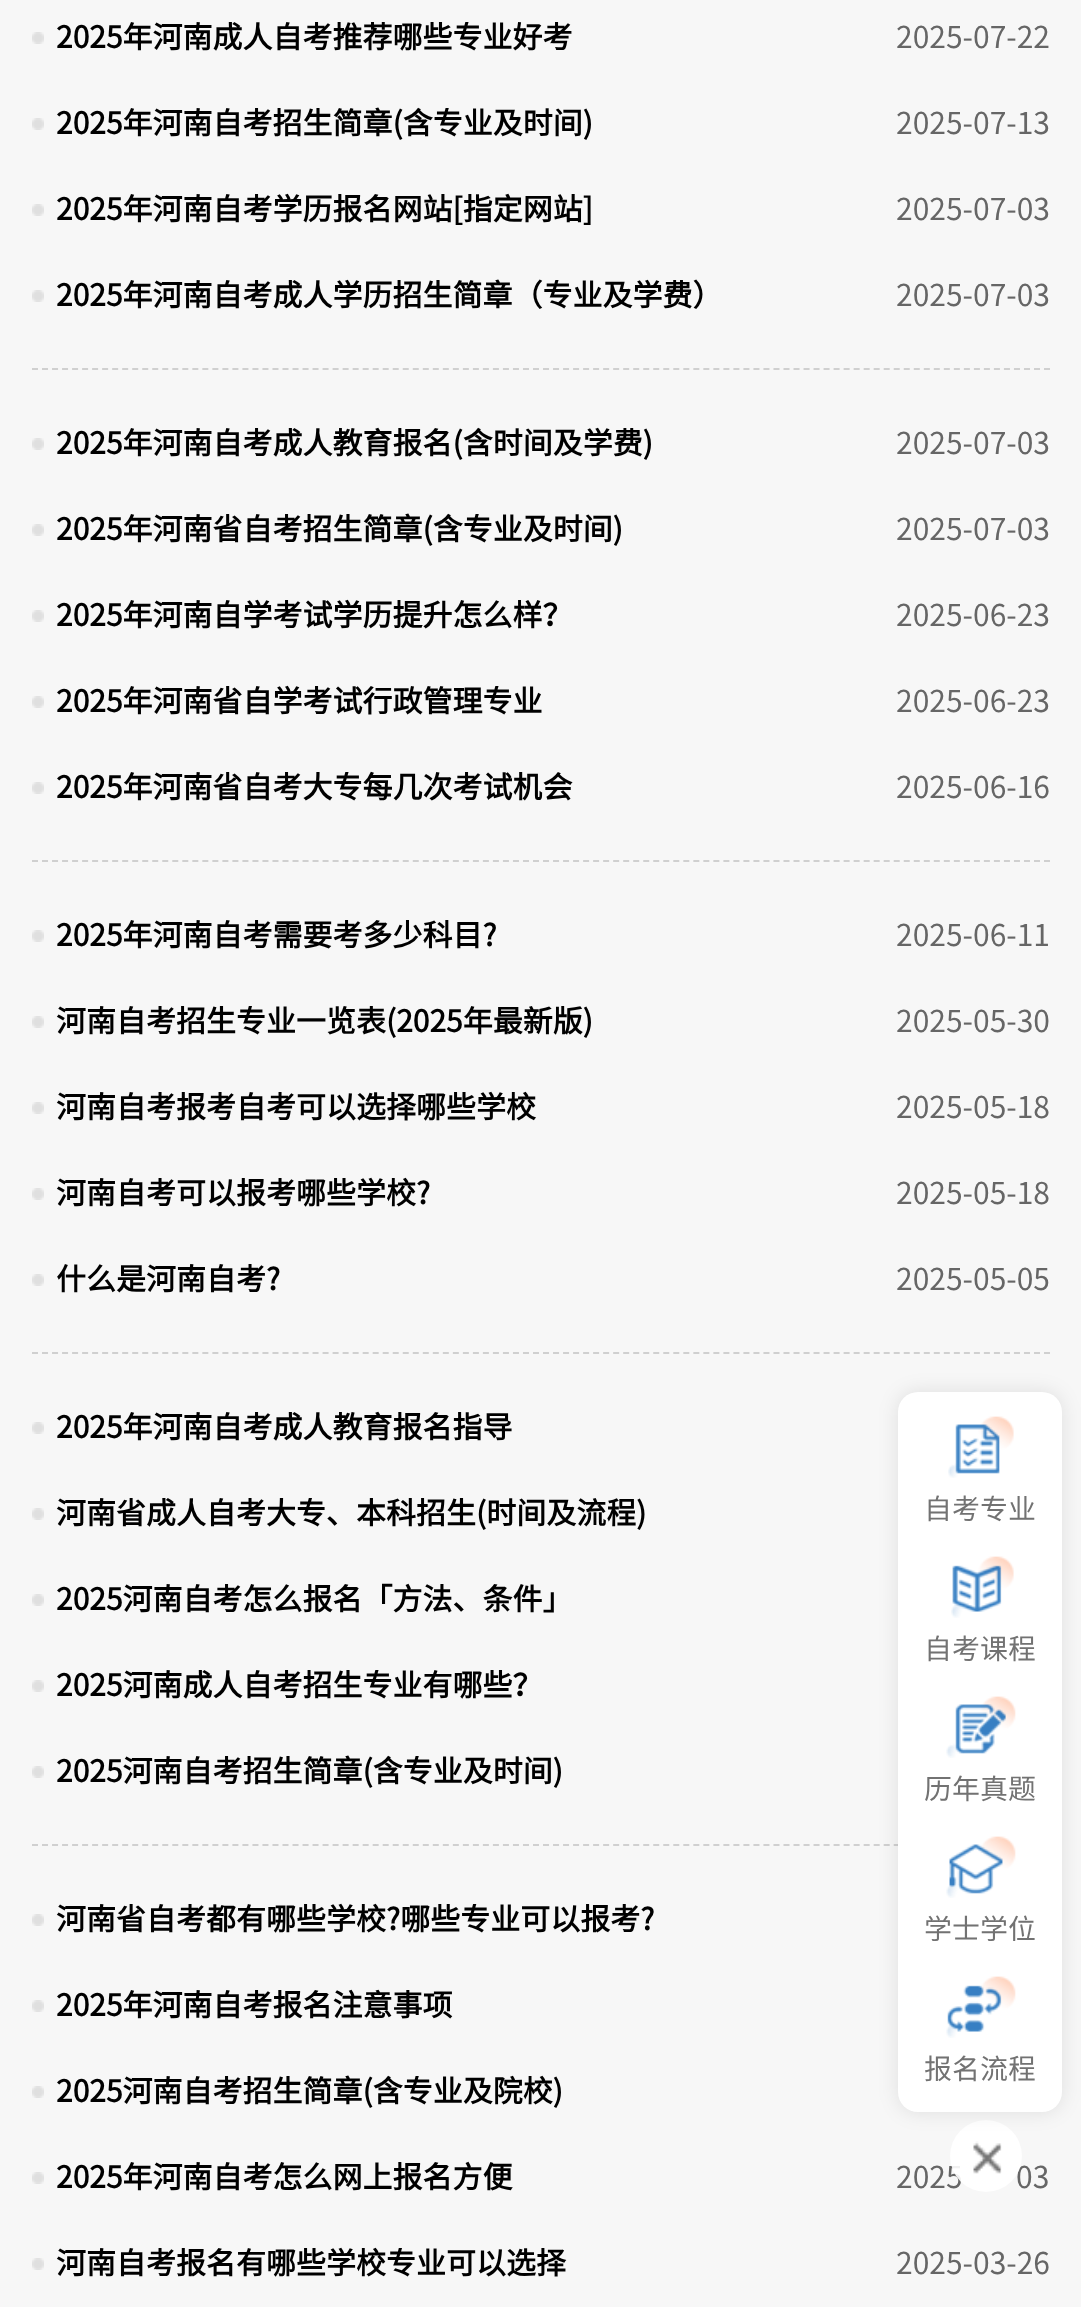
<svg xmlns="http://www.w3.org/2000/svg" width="1081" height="2307">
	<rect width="100%" height="100%" fill="#F7F7F7" />
	<path d="M32 369H1050" fill="none" stroke="#D0D0D0" stroke-width="2" stroke-dasharray="6 4.02" />
	<image x="32" y="32" width="12" height="12" href="assets/img1.png" />
	<text x="56" y="48" font-family="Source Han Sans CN" font-size="30" font-weight="700" fill="#000000">2025年河南成人自考推荐哪些专业好考</text>
	<text x="896" y="48" font-family="Source Han Sans CN" font-size="30" fill="#666666">2025-07-22</text>
	<image x="32" y="118" width="12" height="12" href="assets/img1.png" />
	<text x="56" y="134" font-family="Source Han Sans CN" font-size="30" font-weight="700" fill="#000000">2025年河南自考招生简章(含专业及时间)</text>
	<text x="896" y="134" font-family="Source Han Sans CN" font-size="30" fill="#666666">2025-07-13</text>
	<image x="32" y="204" width="12" height="12" href="assets/img1.png" />
	<text x="56" y="220" font-family="Source Han Sans CN" font-size="30" font-weight="700" fill="#000000">2025年河南自考学历报名网站[指定网站]</text>
	<text x="896" y="220" font-family="Source Han Sans CN" font-size="30" fill="#666666">2025-07-03</text>
	<image x="32" y="290" width="12" height="12" href="assets/img1.png" />
	<text x="56" y="306" font-family="Source Han Sans CN" font-size="30" font-weight="700" fill="#000000">2025年河南自考成人学历招生简章（专业及学费）</text>
	<text x="896" y="306" font-family="Source Han Sans CN" font-size="30" fill="#666666">2025-07-03</text>
	<path d="M32 861H1050" fill="none" stroke="#D0D0D0" stroke-width="2" stroke-dasharray="6 4.02" />
	<image x="32" y="438" width="12" height="12" href="assets/img1.png" />
	<text x="56" y="454" font-family="Source Han Sans CN" font-size="30" font-weight="700" fill="#000000">2025年河南自考成人教育报名(含时间及学费)</text>
	<text x="896" y="454" font-family="Source Han Sans CN" font-size="30" fill="#666666">2025-07-03</text>
	<image x="32" y="524" width="12" height="12" href="assets/img1.png" />
	<text x="56" y="540" font-family="Source Han Sans CN" font-size="30" font-weight="700" fill="#000000">2025年河南省自考招生简章(含专业及时间)</text>
	<text x="896" y="540" font-family="Source Han Sans CN" font-size="30" fill="#666666">2025-07-03</text>
	<image x="32" y="610" width="12" height="12" href="assets/img1.png" />
	<text x="56" y="626" font-family="Source Han Sans CN" font-size="30" font-weight="700" fill="#000000">2025年河南自学考试学历提升怎么样？</text>
	<text x="896" y="626" font-family="Source Han Sans CN" font-size="30" fill="#666666">2025-06-23</text>
	<image x="32" y="696" width="12" height="12" href="assets/img1.png" />
	<text x="56" y="712" font-family="Source Han Sans CN" font-size="30" font-weight="700" fill="#000000">2025年河南省自学考试行政管理专业</text>
	<text x="896" y="712" font-family="Source Han Sans CN" font-size="30" fill="#666666">2025-06-23</text>
	<image x="32" y="782" width="12" height="12" href="assets/img1.png" />
	<text x="56" y="798" font-family="Source Han Sans CN" font-size="30" font-weight="700" fill="#000000">2025年河南省自考大专每几次考试机会</text>
	<text x="896" y="798" font-family="Source Han Sans CN" font-size="30" fill="#666666">2025-06-16</text>
	<path d="M32 1353H1050" fill="none" stroke="#D0D0D0" stroke-width="2" stroke-dasharray="6 4.02" />
	<image x="32" y="930" width="12" height="12" href="assets/img1.png" />
	<text x="56" y="946" font-family="Source Han Sans CN" font-size="30" font-weight="700" fill="#000000">2025年河南自考需要考多少科目?</text>
	<text x="896" y="946" font-family="Source Han Sans CN" font-size="30" fill="#666666">2025-06-11</text>
	<image x="32" y="1016" width="12" height="12" href="assets/img1.png" />
	<text x="56" y="1032" font-family="Source Han Sans CN" font-size="30" font-weight="700" fill="#000000">河南自考招生专业一览表(2025年最新版)</text>
	<text x="896" y="1032" font-family="Source Han Sans CN" font-size="30" fill="#666666">2025-05-30</text>
	<image x="32" y="1102" width="12" height="12" href="assets/img1.png" />
	<text x="56" y="1118" font-family="Source Han Sans CN" font-size="30" font-weight="700" fill="#000000">河南自考报考自考可以选择哪些学校</text>
	<text x="896" y="1118" font-family="Source Han Sans CN" font-size="30" fill="#666666">2025-05-18</text>
	<image x="32" y="1188" width="12" height="12" href="assets/img1.png" />
	<text x="56" y="1204" font-family="Source Han Sans CN" font-size="30" font-weight="700" fill="#000000">河南自考可以报考哪些学校?</text>
	<text x="896" y="1204" font-family="Source Han Sans CN" font-size="30" fill="#666666">2025-05-18</text>
	<image x="32" y="1274" width="12" height="12" href="assets/img1.png" />
	<text x="56" y="1290" font-family="Source Han Sans CN" font-size="30" font-weight="700" fill="#000000">什么是河南自考?</text>
	<text x="896" y="1290" font-family="Source Han Sans CN" font-size="30" fill="#666666">2025-05-05</text>
	<path d="M32 1845H1050" fill="none" stroke="#D0D0D0" stroke-width="2" stroke-dasharray="6 4.02" />
	<image x="32" y="1422" width="12" height="12" href="assets/img1.png" />
	<text x="56" y="1438" font-family="Source Han Sans CN" font-size="30" font-weight="700" fill="#000000">2025年河南自考成人教育报名指导</text>
	<image x="32" y="1508" width="12" height="12" href="assets/img1.png" />
	<text x="56" y="1524" font-family="Source Han Sans CN" font-size="30" font-weight="700" fill="#000000">河南省成人自考大专、本科招生(时间及流程)</text>
	<image x="32" y="1594" width="12" height="12" href="assets/img1.png" />
	<text x="56" y="1610" font-family="Source Han Sans CN" font-size="30" font-weight="700" fill="#000000">2025河南自考怎么报名「方法、条件」</text>
	<image x="32" y="1680" width="12" height="12" href="assets/img1.png" />
	<text x="56" y="1696" font-family="Source Han Sans CN" font-size="30" font-weight="700" fill="#000000">2025河南成人自考招生专业有哪些？</text>
	<image x="32" y="1766" width="12" height="12" href="assets/img1.png" />
	<text x="56" y="1782" font-family="Source Han Sans CN" font-size="30" font-weight="700" fill="#000000">2025河南自考招生简章(含专业及时间)</text>
	<image x="32" y="1914" width="12" height="12" href="assets/img1.png" />
	<text x="56" y="1930" font-family="Source Han Sans CN" font-size="30" font-weight="700" fill="#000000">河南省自考都有哪些学校?哪些专业可以报考?</text>
	<image x="32" y="2000" width="12" height="12" href="assets/img1.png" />
	<text x="56" y="2016" font-family="Source Han Sans CN" font-size="30" font-weight="700" fill="#000000">2025年河南自考报名注意事项</text>
	<image x="32" y="2086" width="12" height="12" href="assets/img1.png" />
	<text x="56" y="2102" font-family="Source Han Sans CN" font-size="30" font-weight="700" fill="#000000">2025河南自考招生简章(含专业及院校)</text>
	<image x="32" y="2172" width="12" height="12" href="assets/img1.png" />
	<text x="56" y="2188" font-family="Source Han Sans CN" font-size="30" font-weight="700" fill="#000000">2025年河南自考怎么网上报名方便</text>
	<g font-family="Source Han Sans CN" font-size="30" fill="#666666">
		<text x="896" y="2188">2025</text>
		<text x="1016" y="2188">03</text>
	</g>
	<image x="32" y="2258" width="12" height="12" href="assets/img1.png" />
	<text x="56" y="2274" font-family="Source Han Sans CN" font-size="30" font-weight="700" fill="#000000">河南自考报名有哪些学校专业可以选择</text>
	<text x="896" y="2274" font-family="Source Han Sans CN" font-size="30" fill="#666666">2025-03-26</text>
	<circle cx="986" cy="2156" r="36" fill="#FFFFFF" fill-opacity="0.9" />
	<image x="973" y="2141" width="29" height="33" href="assets/img7.png" />
	<rect x="898" y="1392" width="164" height="720" rx="20" fill="#000000" fill-opacity="0.1" filter="blur(10px)" />
	<rect x="898" y="1392" width="164" height="720" rx="20" fill="#FFFFFF" />
	<image x="948" y="1416" width="66" height="62" href="assets/img2.png" />
	<text x="924" y="1519" font-family="Source Han Sans CN" font-size="28" fill="#727272">自考专业</text>
	<image x="951" y="1556" width="63" height="62" href="assets/img3.png" />
	<text x="924" y="1659" font-family="Source Han Sans CN" font-size="28" fill="#727272">自考课程</text>
	<image x="946" y="1696" width="70" height="62" href="assets/img4.png" />
	<text x="924" y="1799" font-family="Source Han Sans CN" font-size="28" fill="#727272">历年真题</text>
	<image x="946" y="1836" width="70" height="62" href="assets/img5.png" />
	<text x="924" y="1939" font-family="Source Han Sans CN" font-size="28" fill="#727272">学士学位</text>
	<image x="946" y="1976" width="70" height="62" href="assets/img6.png" />
	<text x="924" y="2079" font-family="Source Han Sans CN" font-size="28" fill="#727272">报名流程</text>
</svg>
